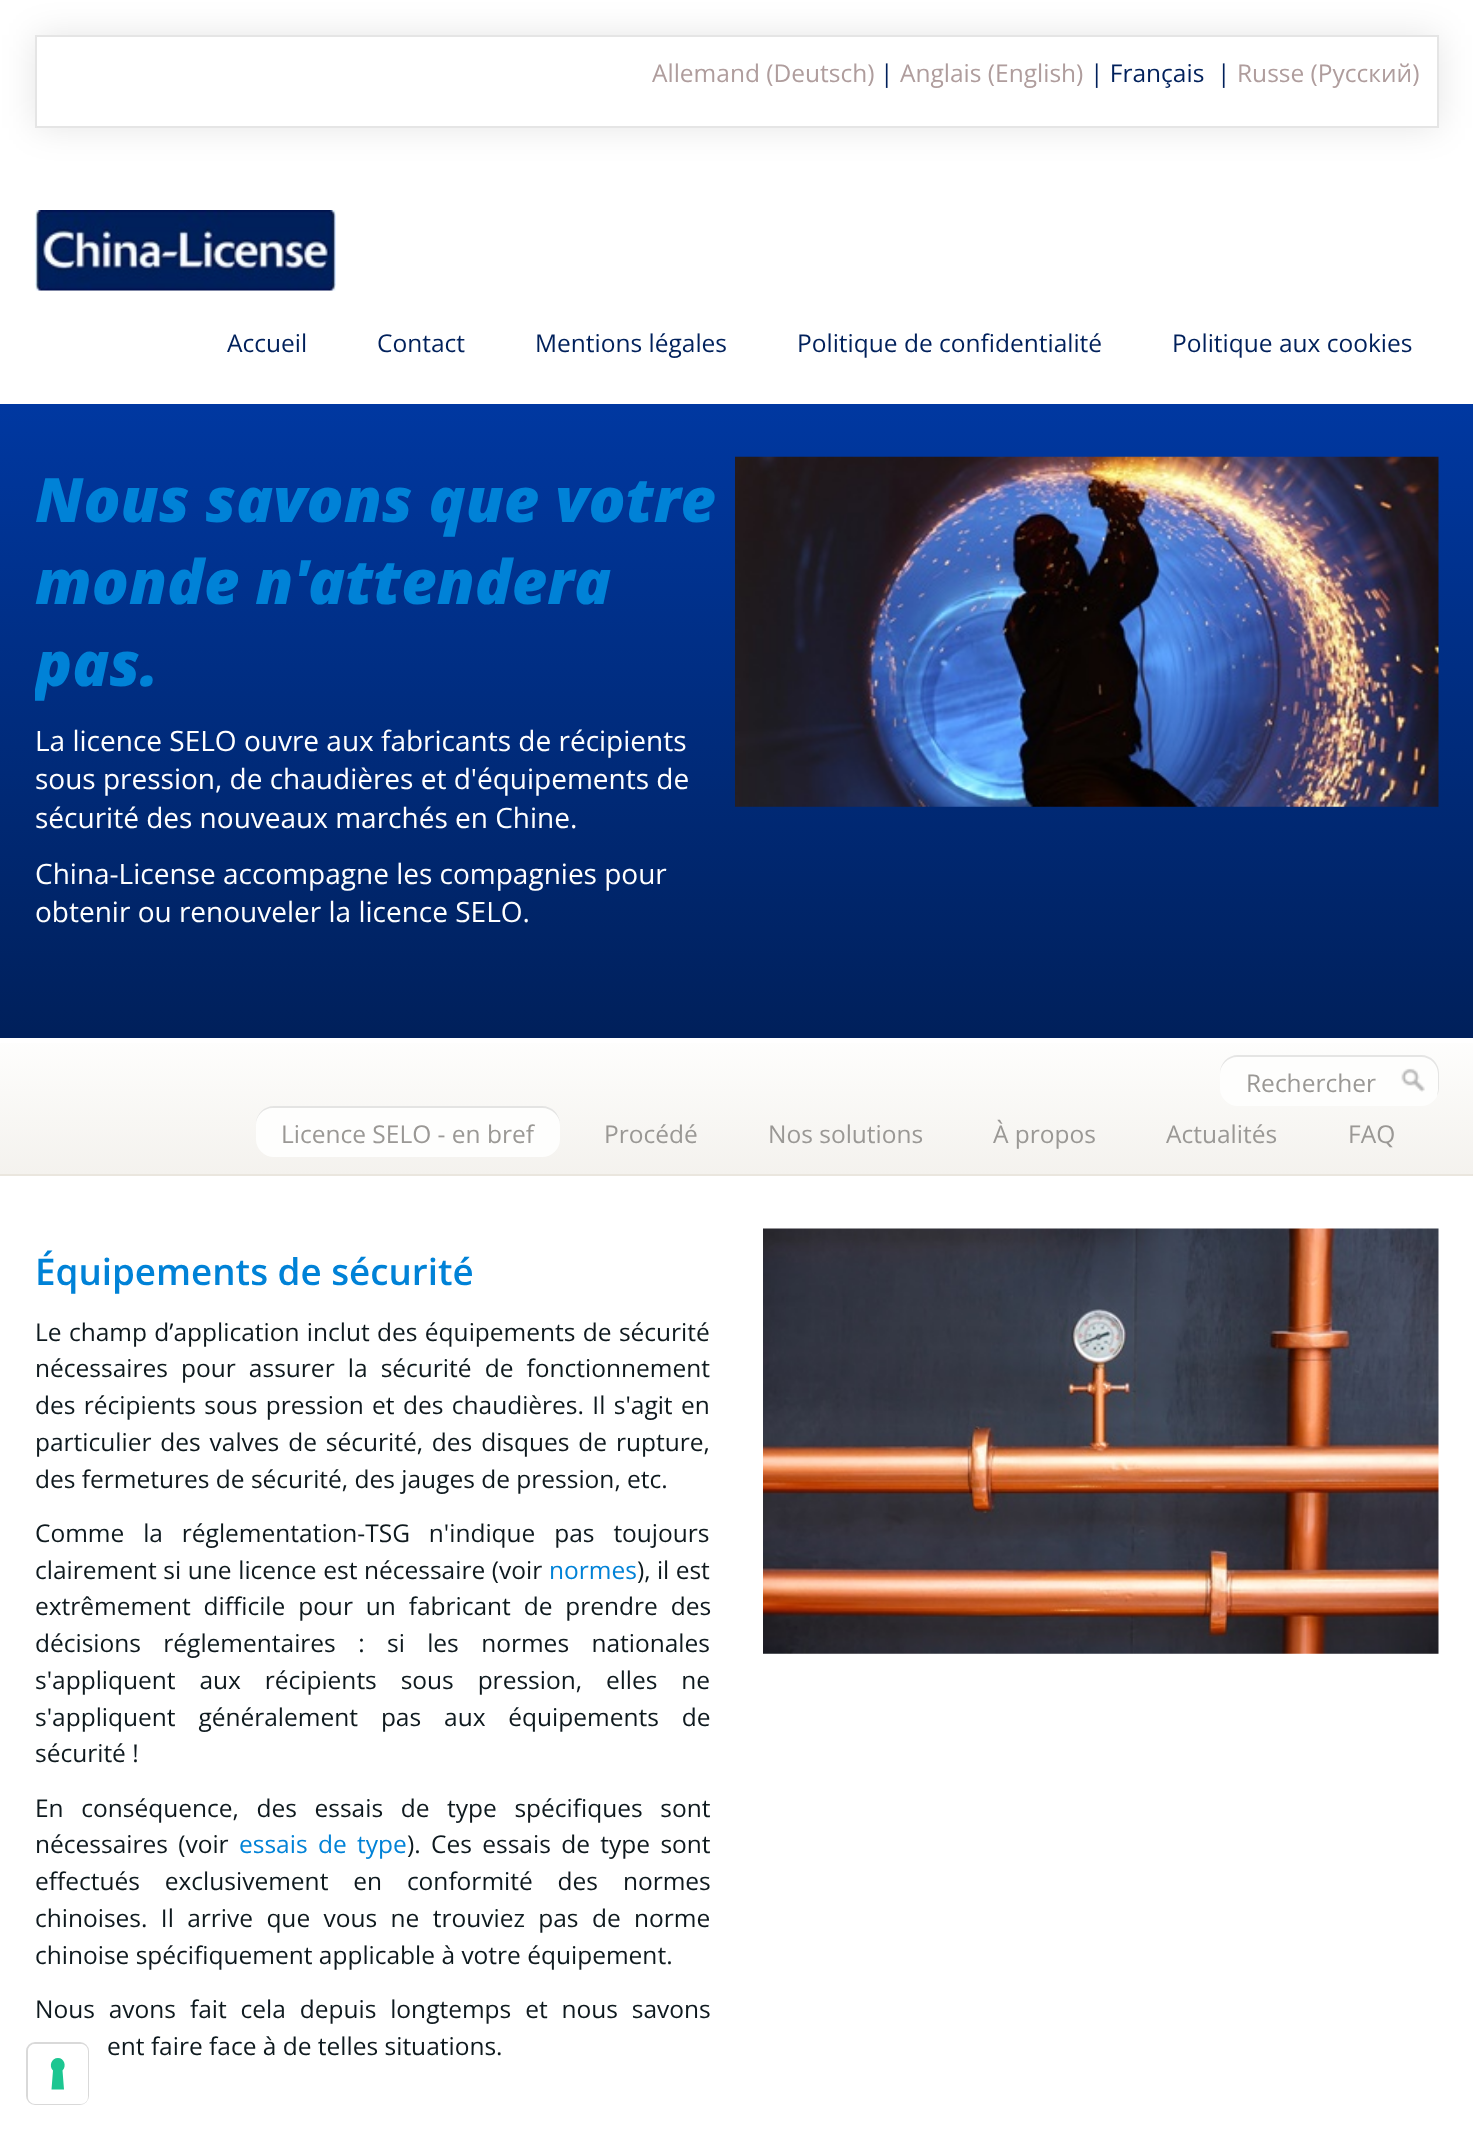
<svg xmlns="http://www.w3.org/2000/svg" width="1473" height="2130">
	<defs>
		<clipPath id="clip1"><path d="M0 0H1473V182H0ZM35 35H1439V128H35Z" clip-rule="evenodd" /></clipPath>
		<linearGradient id="g1" gradientUnits="userSpaceOnUse" x1="737" y1="404" x2="737" y2="1036"><stop offset="0" stop-color="#0038A1" /><stop offset="1" stop-color="#00205B" /></linearGradient>
		<clipPath id="clip2"><rect x="35" y="457" width="700" height="492" /></clipPath>
		<linearGradient id="g2" gradientUnits="userSpaceOnUse" x1="737" y1="1038" x2="737" y2="1174"><stop offset="0" stop-color="#FEFEFD" /><stop offset="1" stop-color="#F4F2EE" /></linearGradient>
	</defs>
	<rect width="100%" height="100%" fill="#FFFFFF" />
	<g clip-path="url(#clip1)">
		<rect x="35" y="35" width="1404" height="93" fill="#000000" fill-opacity="0.1" filter="blur(17.5px)" />
	</g>
	<rect x="36" y="36" width="1402" height="91" fill="none" stroke="#000000" stroke-opacity="0.1" stroke-width="2" />
	<text x="652" y="82" font-family="Open Sans" font-size="24.5" fill="#AF9D9D">Allemand (Deutsch)</text>
	<text x="880" y="82" font-family="Open Sans" font-size="24.5" fill="#00205B">|</text>
	<text x="900" y="82" font-family="Open Sans" font-size="24.5" fill="#AF9D9D">Anglais (English)</text>
	<text x="1090" y="82" font-family="Open Sans" font-size="24.5" fill="#00205B" xml:space="preserve">| Français  |</text>
	<text x="1237" y="82" font-family="Open Sans" font-size="24.5" fill="#AF9D9D">Russe (Русский)</text>
	<image x="35" y="210" width="301" height="81" href="assets/img1.png" />
	<g font-family="Open Sans" font-size="24.5" fill="#00205B">
		<text x="227" y="352">Accueil</text>
		<text x="377" y="352">Contact</text>
		<text x="535" y="352">Mentions légales</text>
		<text x="797" y="352">Politique de confidentialité</text>
		<text x="1172" y="352">Politique aux cookies</text>
	</g>
	<rect x="0" y="404" width="1473" height="632" fill="url(#g1)" />
	<rect x="0" y="1036" width="1473" height="2" fill="#00205B" />
	<g font-family="Open Sans" font-size="61.25" font-weight="800" font-style="italic" fill="#0082D7">
		<text x="35" y="522">Nous savons que votre</text>
		<text x="35" y="604">monde n'attendera</text>
	</g>
	<g clip-path="url(#clip2)">
		<text x="35" y="686" font-family="Open Sans" font-size="61.25" font-weight="800" font-style="italic" fill="#0082D7">pas.</text>
	</g>
	<g font-family="Open Sans" font-size="28" fill="#FFFFFF">
		<text x="35" y="751">La licence SELO ouvre aux fabricants de récipients</text>
		<text x="35" y="789">sous pression, de chaudières et d'équipements de</text>
		<text x="35" y="828">sécurité des nouveaux marchés en Chine.</text>
		<text x="35" y="884">China-License accompagne les compagnies pour</text>
		<text x="35" y="922">obtenir ou renouveler la licence SELO.</text>
	</g>
	<image x="735" y="456" width="704" height="351" href="assets/img2.png" />
	<rect x="0" y="1043" width="1473" height="131" fill="url(#g2)" />
	<rect x="0" y="1174" width="1473" height="2" fill="#EAE6DE" />
	<rect x="1220" y="1055" width="219" height="51" rx="18" fill="#FEFEFD" />
	<path d="M1237 1057H1421C1431 1057 1438 1065 1438 1074V1090L1437 1096C1438 1094 1439 1091 1439 1088V1073C1439 1063 1431 1055 1421 1055H1238C1228 1055 1220 1063 1220 1073V1074C1220 1065 1228 1057 1237 1057Z" fill="#E5E5E4" />
	<text x="1246" y="1092" font-family="Open Sans" font-size="24.5" fill="#9A9895">Rechercher</text>
	<image x="1401" y="1068" width="24" height="24" href="assets/img3.png" />
	<rect x="256" y="1106" width="304" height="51" rx="18" fill="#FEFEFD" />
	<path d="M273 1108H542C552 1108 560 1116 560 1125V1124C560 1114 552 1106 542 1106H274C264 1106 256 1114 256 1124V1125C256 1116 263 1108 273 1108Z" fill="#000000" fill-opacity="0.1" />
	<g font-family="Open Sans" font-size="24.5" fill="#9A9895">
		<text x="281" y="1143">Licence SELO - en bref</text>
		<text x="604" y="1143">Procédé</text>
		<text x="768" y="1143">Nos solutions</text>
		<text x="993" y="1143">À propos</text>
		<text x="1166" y="1143">Actualités</text>
		<text x="1348" y="1143">FAQ</text>
	</g>
	<text x="35" y="1285" font-family="Open Sans" font-size="36.75" font-weight="600" fill="#0082D7">Équipements de sécurité</text>
	<g font-family="Open Sans" font-size="24.5" fill="#0E191E">
		<text x="35" y="1341" word-spacing="1">Le champ d’application inclut des équipements de sécurité</text>
		<text x="35" y="1377" word-spacing="6.75">nécessaires pour assurer la sécurité de fonctionnement</text>
		<text x="35" y="1414" word-spacing="2">des récipients sous pression et des chaudières. Il s'agit en</text>
		<text x="35" y="1451" word-spacing="2.5">particulier des valves de sécurité, des disques de rupture,</text>
		<text x="35" y="1488">des fermetures de sécurité, des jauges de pression, etc.</text>
		<text x="35" y="1542" word-spacing="12.5">Comme la réglementation-TSG n'indique pas toujours</text>
		<text x="35" y="1579" word-spacing="0.25">clairement si une licence est nécessaire (voir</text>
	</g>
	<text x="549" y="1579" font-family="Open Sans" font-size="24.5" fill="#0082D7">normes</text>
	<g font-family="Open Sans" font-size="24.5" fill="#0E191E">
		<text x="637" y="1579">), il est</text>
		<text x="35" y="1615" word-spacing="6.5">extrêmement difficile pour un fabricant de prendre des</text>
		<text x="35" y="1652" word-spacing="16">décisions réglementaires : si les normes nationales</text>
		<text x="35" y="1689" word-spacing="17.5">s'appliquent aux récipients sous pression, elles ne</text>
		<text x="35" y="1726" word-spacing="16.5">s'appliquent généralement pas aux équipements de</text>
		<text x="35" y="1762">sécurité !</text>
		<text x="35" y="1817" word-spacing="11.25">En conséquence, des essais de type spécifiques sont</text>
		<text x="35" y="1853" word-spacing="4">nécessaires (voir</text>
	</g>
	<text x="239" y="1853" word-spacing="4" font-family="Open Sans" font-size="24.5" fill="#0082D7">essais de type</text>
	<g font-family="Open Sans" font-size="24.5" fill="#0E191E">
		<text x="407" y="1853" word-spacing="4">). Ces essais de type sont</text>
		<text x="35" y="1890" word-spacing="18.5">effectués exclusivement en conformité des normes</text>
		<text x="35" y="1927" word-spacing="7">chinoises. Il arrive que vous ne trouviez pas de norme</text>
		<text x="35" y="1964">chinoise spécifiquement applicable à votre équipement.</text>
		<text x="35" y="2018" word-spacing="7.5">Nous avons fait cela depuis longtemps et nous savons</text>
		<text x="107" y="2055">ent faire face à de telles situations.</text>
	</g>
	<image x="763" y="1228" width="676" height="426" href="assets/img4.png" />
	<rect x="27" y="2043" width="61" height="61" rx="8" fill="none" stroke="#000000" stroke-opacity="0.15" stroke-width="2" />
	<rect x="28" y="2044" width="60" height="60" rx="7" fill="#FFFFFF" />
	<path d="M58 2058C64 2058 67 2066 62.5 2070.5L64 2089.5H51.5L53 2070.5C48.5 2066 51.5 2058 58 2058Z" fill="#1CC691" fill-rule="evenodd" />
</svg>
